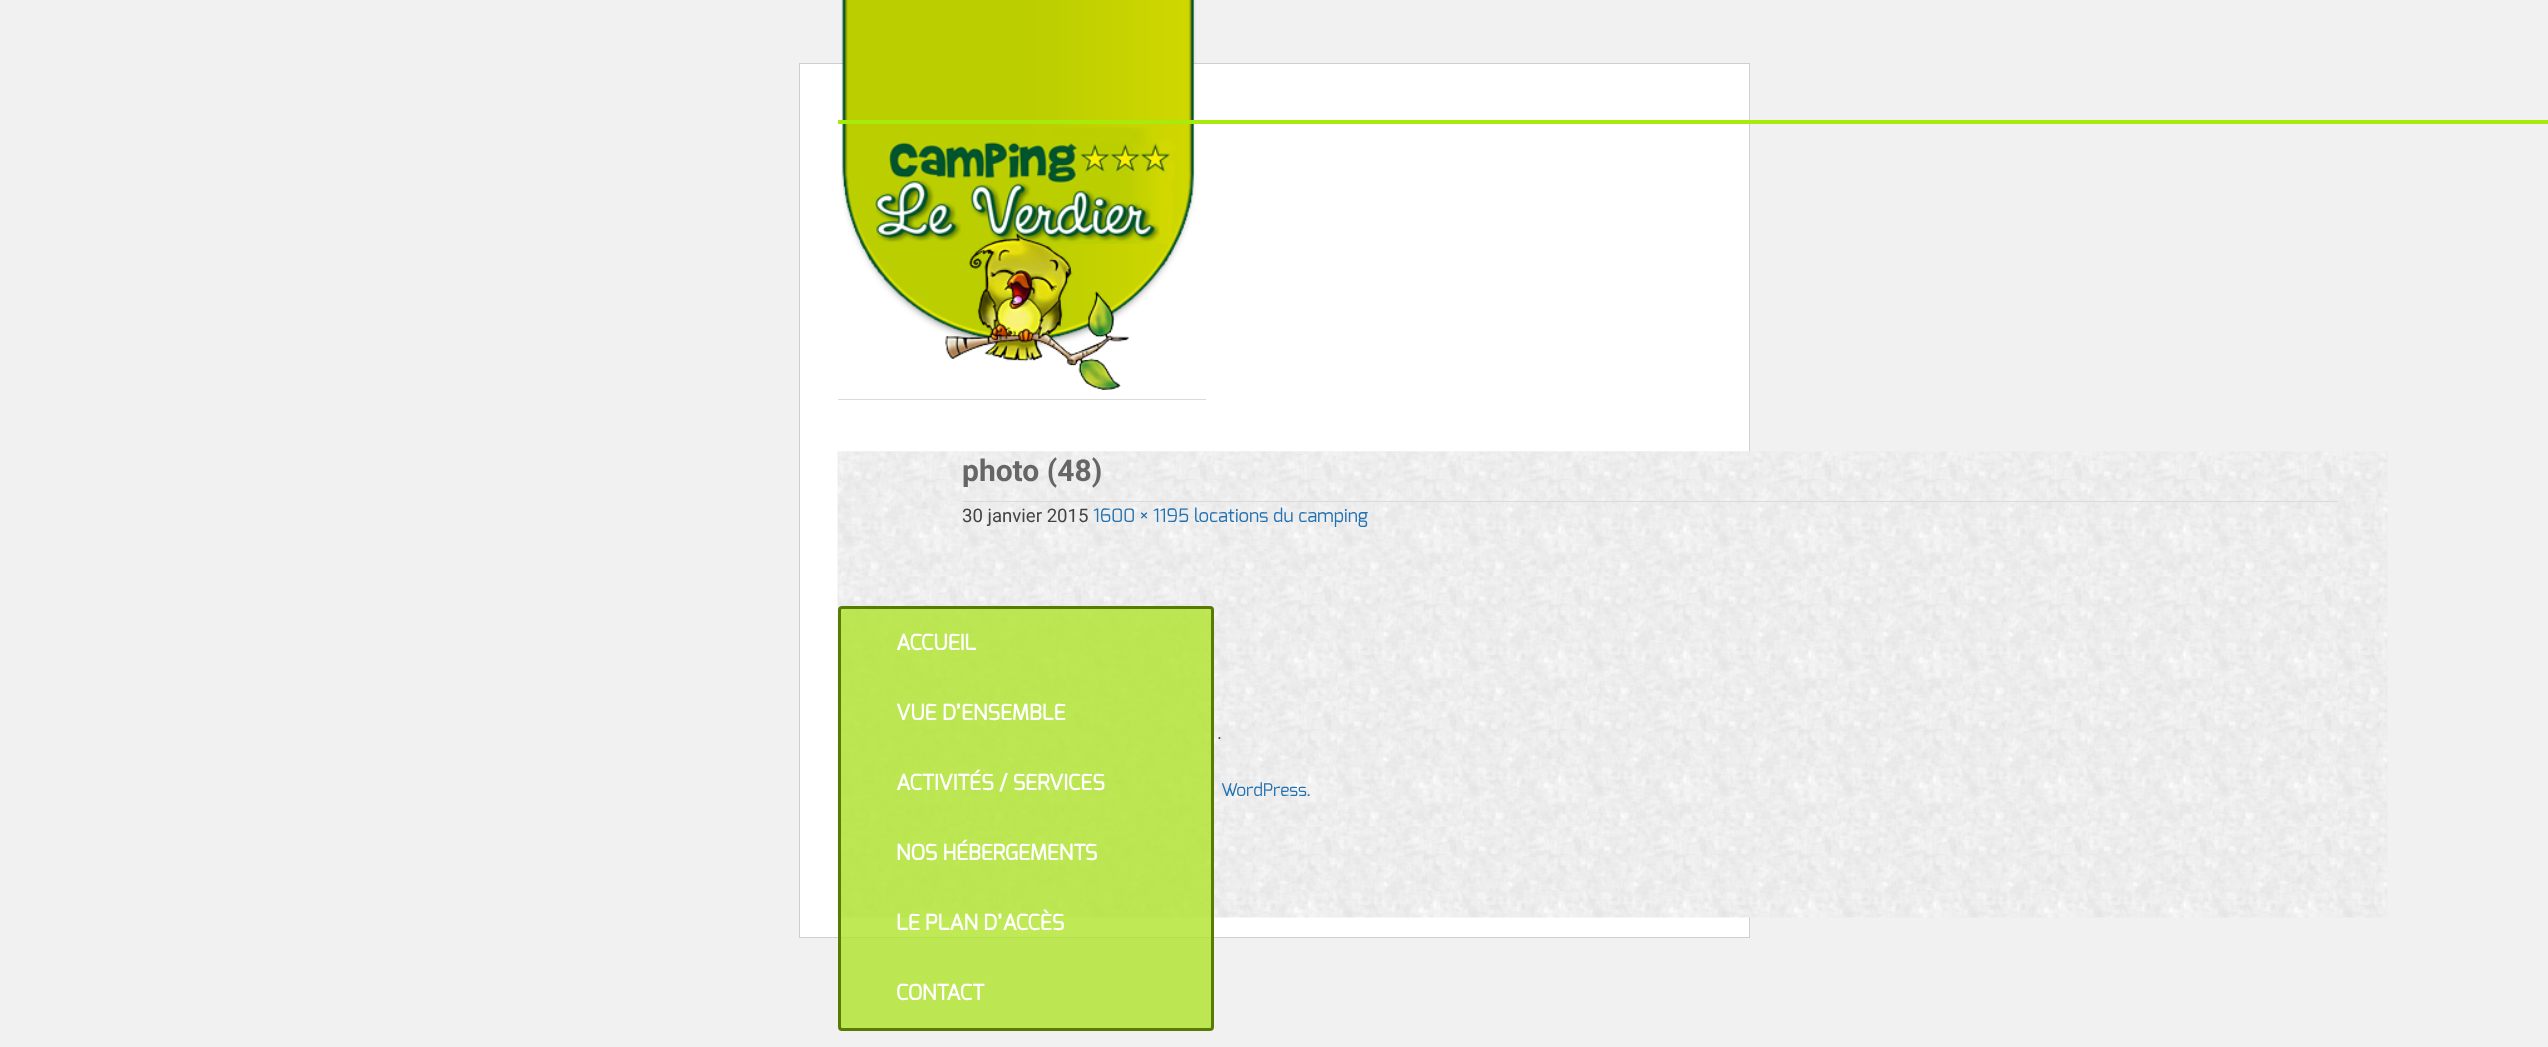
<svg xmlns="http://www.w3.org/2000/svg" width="2548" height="1047">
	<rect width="100%" height="100%" fill="#F1F1F1" />
	<rect x="799.5" y="63.5" width="950" height="874" fill="#FFFFFF" stroke="#CCD0D4" />
	<image x="841" y="0" width="355" height="390" href="assets/img2.png" />
	<rect x="838" y="120" width="1710" height="4" fill="#A8EA0C" />
	<image x="837" y="451" width="1551" height="467" href="assets/img1.png" />
	<rect x="963" y="501" width="1375" height="1" fill="#DADADA" />
	<text x="962" y="481" font-family="Roboto" font-size="30" font-weight="700" fill="#666666">photo (48)</text>
	<text x="962" y="522" font-family="Roboto" font-size="18.6" fill="#434343">30 janvier 2015</text>
	<text x="1093" y="522" font-family="Exo" font-size="18.6" fill="#2271B1">1600 × 1195 locations du camping</text>
	<text x="1217" y="739" font-family="Liberation Sans" font-size="17.5" fill="#434343">.</text>
	<text x="1221" y="796" font-family="Exo" font-size="17.5" fill="#2271B1">WordPress.</text>
	<rect x="838" y="399" width="368" height="1" fill="#DADADA" />
	<rect x="839.5" y="607.5" width="373" height="422" rx="2.5" fill="#AFE32B" fill-opacity="0.8" stroke="#587C03" stroke-width="3" />
	<g font-family="Exo" font-size="21.25" font-weight="700" fill="#FFFFFF">
		<text x="896" y="650">ACCUEIL</text>
		<text x="896" y="720">VUE D’ENSEMBLE</text>
		<text x="896" y="790">ACTIVITÉS / SERVICES</text>
		<text x="896" y="860">NOS HÉBERGEMENTS</text>
		<text x="896" y="930">LE PLAN D’ACCÈS</text>
		<text x="896" y="1000">CONTACT</text>
	</g>
</svg>
